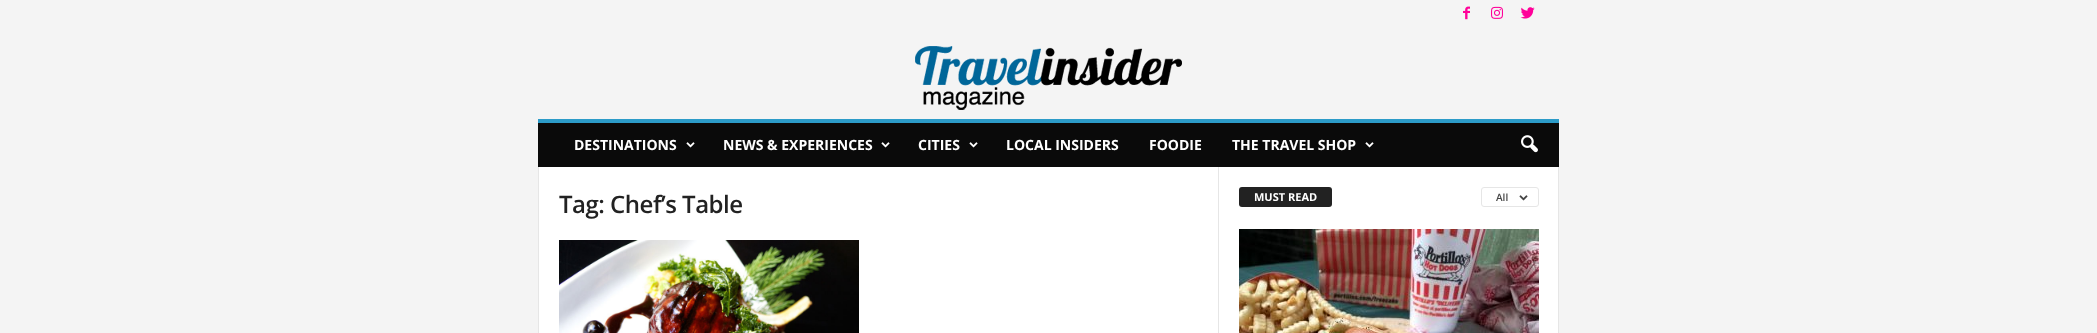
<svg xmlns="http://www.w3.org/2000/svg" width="2097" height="333">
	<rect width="100%" height="100%" fill="#F4F4F4" />
	<image x="1463" y="6" width="7" height="14" href="assets/img1.png" />
	<image x="1491" y="6" width="12" height="13" href="assets/img2.png" />
	<image x="1520" y="7" width="15" height="12" href="assets/img3.png" />
	<image x="915" y="46" width="267" height="64" href="assets/img4.png" />
	<rect x="538" y="123" width="1021" height="44" fill="#0A0A0A" />
	<rect x="538" y="119" width="1021" height="4" fill="#2C9BC8" />
	<text x="574" y="150" font-family="Open Sans" font-size="14" font-weight="700" fill="#FFFFFF">DESTINATIONS</text>
	<image x="686" y="142" width="9" height="6" href="assets/img5.png" />
	<text x="723" y="150" font-family="Open Sans" font-size="14" font-weight="700" fill="#FFFFFF">NEWS &amp; EXPERIENCES</text>
	<image x="881" y="142" width="9" height="6" href="assets/img5.png" />
	<text x="918" y="150" font-family="Open Sans" font-size="14" font-weight="700" fill="#FFFFFF">CITIES</text>
	<image x="969" y="142" width="9" height="6" href="assets/img5.png" />
	<g font-family="Open Sans" font-size="14" font-weight="700" fill="#FFFFFF">
		<text x="1006" y="150">LOCAL INSIDERS</text>
		<text x="1149" y="150">FOODIE</text>
		<text x="1232" y="150">THE TRAVEL SHOP</text>
	</g>
	<image x="1365" y="142" width="9" height="6" href="assets/img5.png" />
	<image x="1521" y="135" width="17" height="18" href="assets/img6.png" />
	<rect x="539" y="167" width="1019" height="166" fill="#FFFFFF" />
	<rect x="538" y="167" width="1" height="166" fill="#E6E6E6" />
	<text x="559" y="213" font-family="Open Sans" font-size="24" font-weight="600" letter-spacing="-0.5" fill="#222222">Tag: Chef’s Table</text>
	<image x="559" y="240" width="300" height="93" href="assets/img7.png" />
	<rect x="1218" y="167" width="1" height="166" fill="#E6E6E6" />
	<rect x="1239" y="187" width="93" height="20" rx="3" fill="#222222" />
	<text x="1254" y="201" font-family="Open Sans" font-size="11" font-weight="700" fill="#FFFFFF">MUST READ</text>
	<rect x="1481.5" y="187.5" width="57" height="19" rx="2.5" fill="none" stroke="#E6E6E6" />
	<text x="1496" y="201" font-family="Open Sans" font-size="10" font-weight="600" fill="#444444">All</text>
	<image x="1519" y="195" width="9" height="6" href="assets/img8.png" />
	<image x="1239" y="229" width="300" height="104" href="assets/img9.png" />
	<rect x="1558" y="167" width="1" height="166" fill="#E6E6E6" />
</svg>
